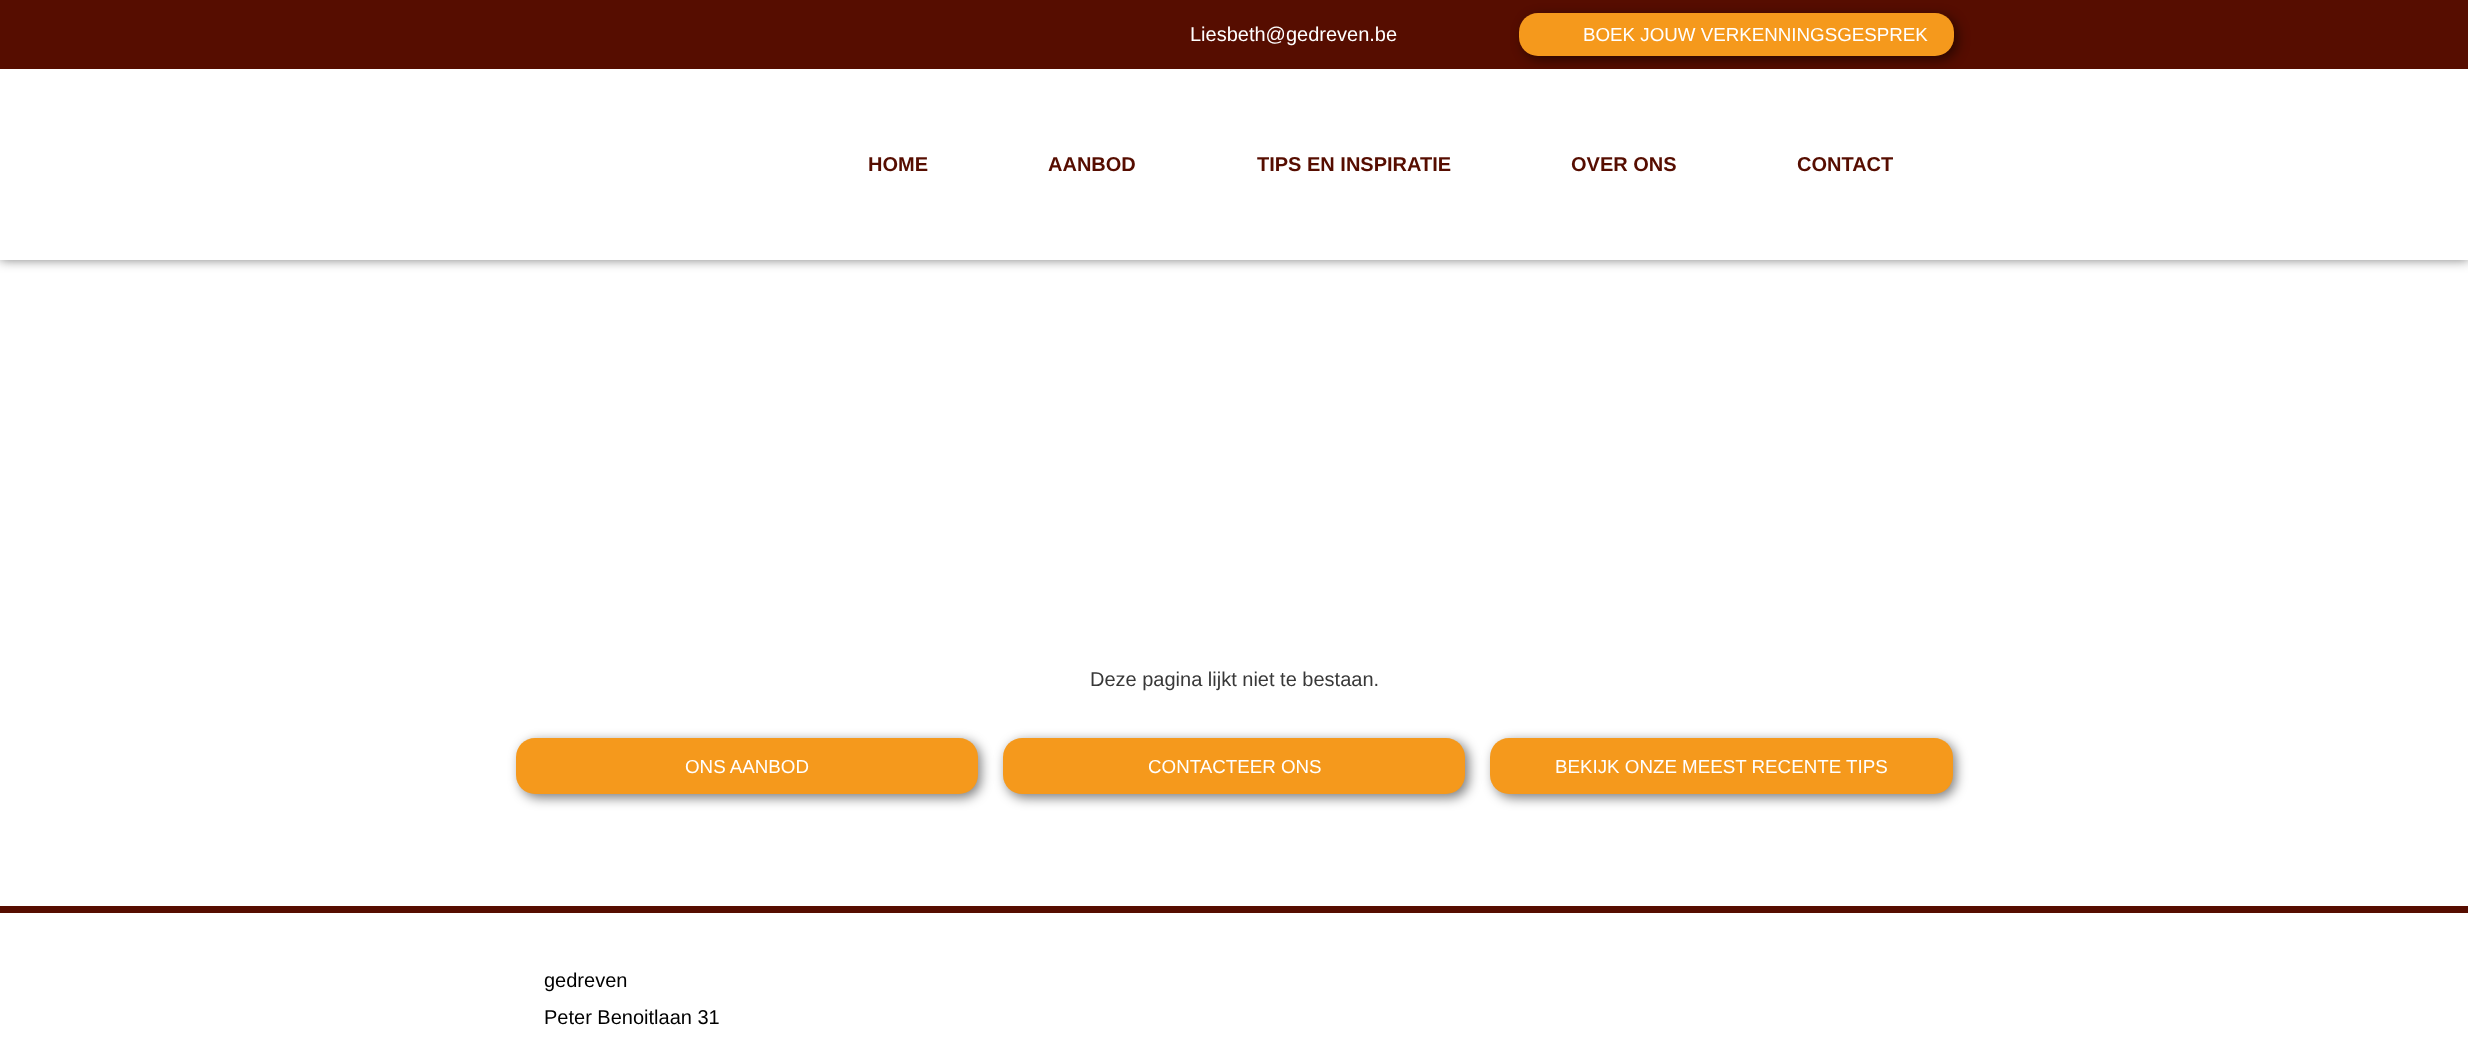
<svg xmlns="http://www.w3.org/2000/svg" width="2468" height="1056">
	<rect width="100%" height="100%" fill="#FFFFFF" />
	<rect x="0" y="0" width="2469" height="260" fill="#000000" fill-opacity="0.5" filter="blur(6px)" />
	<rect x="0" y="0" width="2468" height="69" fill="#560D00" />
	<text x="1190" y="41" font-family="Liberation Sans" font-size="20" fill="#FFFFFF">Liesbeth@gedreven.be</text>
	<rect x="1523" y="16" width="435" height="44" rx="19" fill="#000000" fill-opacity="0.5" filter="blur(6px)" />
	<rect x="1519" y="13" width="435" height="43" rx="19" fill="#F5991C" />
	<text x="1583" y="41" font-family="Liberation Sans" font-size="18.75" fill="#FFFFFF">BOEK JOUW VERKENNINGSGESPREK</text>
	<rect x="0" y="69" width="2468" height="191" fill="#FFFFFF" />
	<g font-family="Liberation Sans" font-size="20" font-weight="700" fill="#560D00">
		<text x="868" y="171">HOME</text>
		<text x="1048" y="171">AANBOD</text>
		<text x="1257" y="171">TIPS EN INSPIRATIE</text>
		<text x="1571" y="171">OVER ONS</text>
		<text x="1797" y="171">CONTACT</text>
	</g>
	<text x="1090" y="686" font-family="Liberation Sans" font-size="20" fill="#383838">Deze pagina lijkt niet te bestaan.</text>
	<rect x="520" y="741" width="461" height="57" rx="19" fill="#000000" fill-opacity="0.5" filter="blur(6px)" />
	<rect x="516" y="738" width="462" height="56" rx="19" fill="#F5991C" />
	<text x="685" y="773" font-family="Liberation Sans" font-size="18.75" fill="#FFFFFF">ONS AANBOD</text>
	<rect x="1006" y="741" width="463" height="57" rx="19" fill="#000000" fill-opacity="0.5" filter="blur(6px)" />
	<rect x="1003" y="738" width="462" height="56" rx="19" fill="#F5991C" />
	<text x="1148" y="773" font-family="Liberation Sans" font-size="18.75" fill="#FFFFFF">CONTACTEER ONS</text>
	<rect x="1494" y="741" width="462" height="57" rx="19" fill="#000000" fill-opacity="0.5" filter="blur(6px)" />
	<rect x="1490" y="738" width="463" height="56" rx="19" fill="#F5991C" />
	<text x="1555" y="773" font-family="Liberation Sans" font-size="18.75" fill="#FFFFFF">BEKIJK ONZE MEEST RECENTE TIPS</text>
	<rect x="0" y="906" width="2468" height="7" fill="#560D00" />
	<g font-family="Liberation Sans" font-size="20" fill="#000000">
		<text x="544" y="987">gedreven</text>
		<text x="544" y="1024">Peter Benoitlaan 31</text>
	</g>
</svg>
